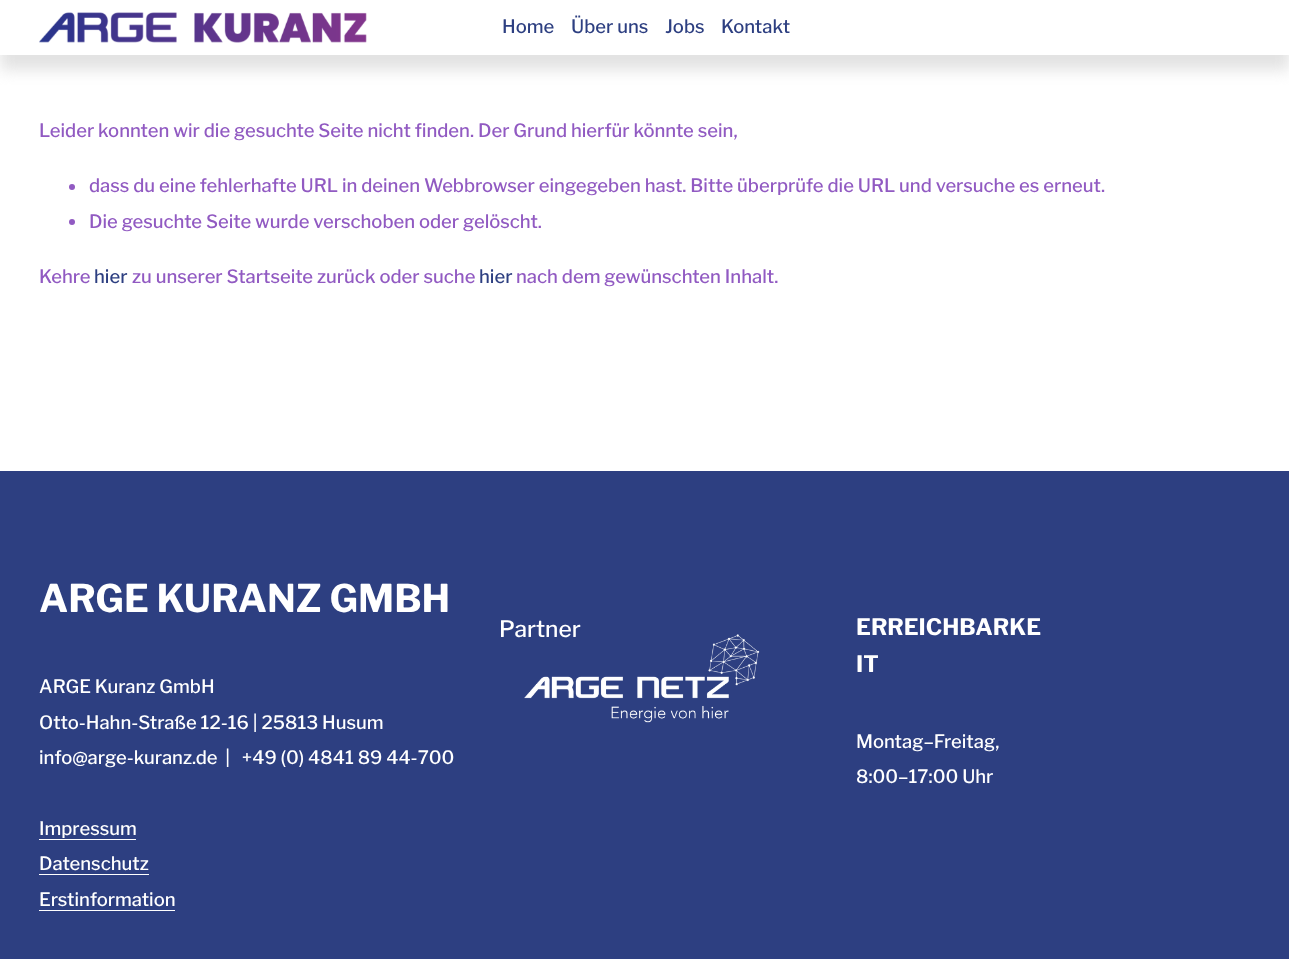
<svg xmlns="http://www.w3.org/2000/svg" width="1289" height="959">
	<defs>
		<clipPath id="clip1"><rect x="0" y="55" width="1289" height="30" /></clipPath>
	</defs>
	<rect width="100%" height="100%" fill="#FFFFFF" />
	<g clip-path="url(#clip1)">
		<rect x="0" y="15" width="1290" height="55" fill="#E2E2E2" filter="blur(7.5px)" />
	</g>
	<image x="39" y="12" width="328" height="31" href="assets/img1.png" />
	<g font-family="Libre Franklin" font-size="18.45" font-weight="500" fill="#2D3F81">
		<text x="502" y="33">Home</text>
		<text x="571" y="33">Über uns</text>
		<text x="665" y="33">Jobs</text>
		<text x="721" y="33">Kontakt</text>
	</g>
	<text x="39" y="137" font-family="Libre Franklin" font-size="18.45" font-weight="500" fill="#915AC2">Leider konnten wir die gesuchte Seite nicht finden. Der Grund hierfür könnte sein,</text>
	<circle cx="72" cy="187" r="3" fill="#915AC2" />
	<text x="89" y="192" font-family="Libre Franklin" font-size="18.45" font-weight="500" fill="#915AC2">dass du eine fehlerhafte URL in deinen Webbrowser eingegeben hast. Bitte überprüfe die URL und versuche es erneut.</text>
	<circle cx="72" cy="222" r="3" fill="#915AC2" />
	<g font-family="Libre Franklin" font-size="18.45" font-weight="500" fill="#915AC2">
		<text x="89" y="228">Die gesuchte Seite wurde verschoben oder gelöscht.</text>
		<text x="39" y="283">Kehre</text>
	</g>
	<text x="94" y="283" font-family="Libre Franklin" font-size="18.45" font-weight="500" fill="#2D3F81">hier</text>
	<text x="132" y="283" font-family="Libre Franklin" font-size="18.45" font-weight="500" fill="#915AC2">zu unserer Startseite zurück oder suche</text>
	<text x="479" y="283" font-family="Libre Franklin" font-size="18.45" font-weight="500" fill="#2D3F81">hier</text>
	<text x="516" y="283" font-family="Libre Franklin" font-size="18.45" font-weight="500" fill="#915AC2">nach dem gewünschten Inhalt.</text>
	<rect x="0" y="471" width="1289" height="488" fill="#2D3F81" />
	<text x="39" y="612" font-family="Libre Franklin" font-size="38" font-weight="700" fill="#FFFFFF">ARGE KURANZ GMBH</text>
	<g font-family="Libre Franklin" font-size="18.45" font-weight="500" fill="#FFFFFF">
		<text x="39" y="693">ARGE Kuranz GmbH</text>
		<text x="39" y="729">Otto-Hahn-Straße 12-16 | 25813 Husum</text>
		<text x="39" y="764" xml:space="preserve">info@arge-kuranz.de  |   +49 (0) 4841 89 44-700</text>
		<text x="39" y="835">Impressum</text>
	</g>
	<rect x="39" y="839" width="97" height="1" fill="#FFFFFF" />
	<text x="39" y="870" font-family="Libre Franklin" font-size="18.45" font-weight="500" fill="#FFFFFF">Datenschutz</text>
	<rect x="39" y="874" width="110" height="1" fill="#FFFFFF" />
	<text x="39" y="906" font-family="Libre Franklin" font-size="18.45" font-weight="500" fill="#FFFFFF">Erstinformation</text>
	<rect x="39" y="910" width="136" height="1" fill="#FFFFFF" />
	<image x="524" y="634" width="236" height="89" href="assets/img2.png" />
	<text x="499" y="637" font-family="Libre Franklin" font-size="22.75" font-weight="500" fill="#FFFFFF">Partner</text>
	<g font-family="Libre Franklin" font-size="22.75" font-weight="700" fill="#FFFFFF">
		<text x="856" y="635">ERREICHBARKE</text>
		<text x="856" y="672">IT</text>
	</g>
	<g font-family="Libre Franklin" font-size="18.45" font-weight="500" fill="#FFFFFF">
		<text x="856" y="748">Montag–Freitag,</text>
		<text x="856" y="783">8:00–17:00 Uhr</text>
	</g>
</svg>
